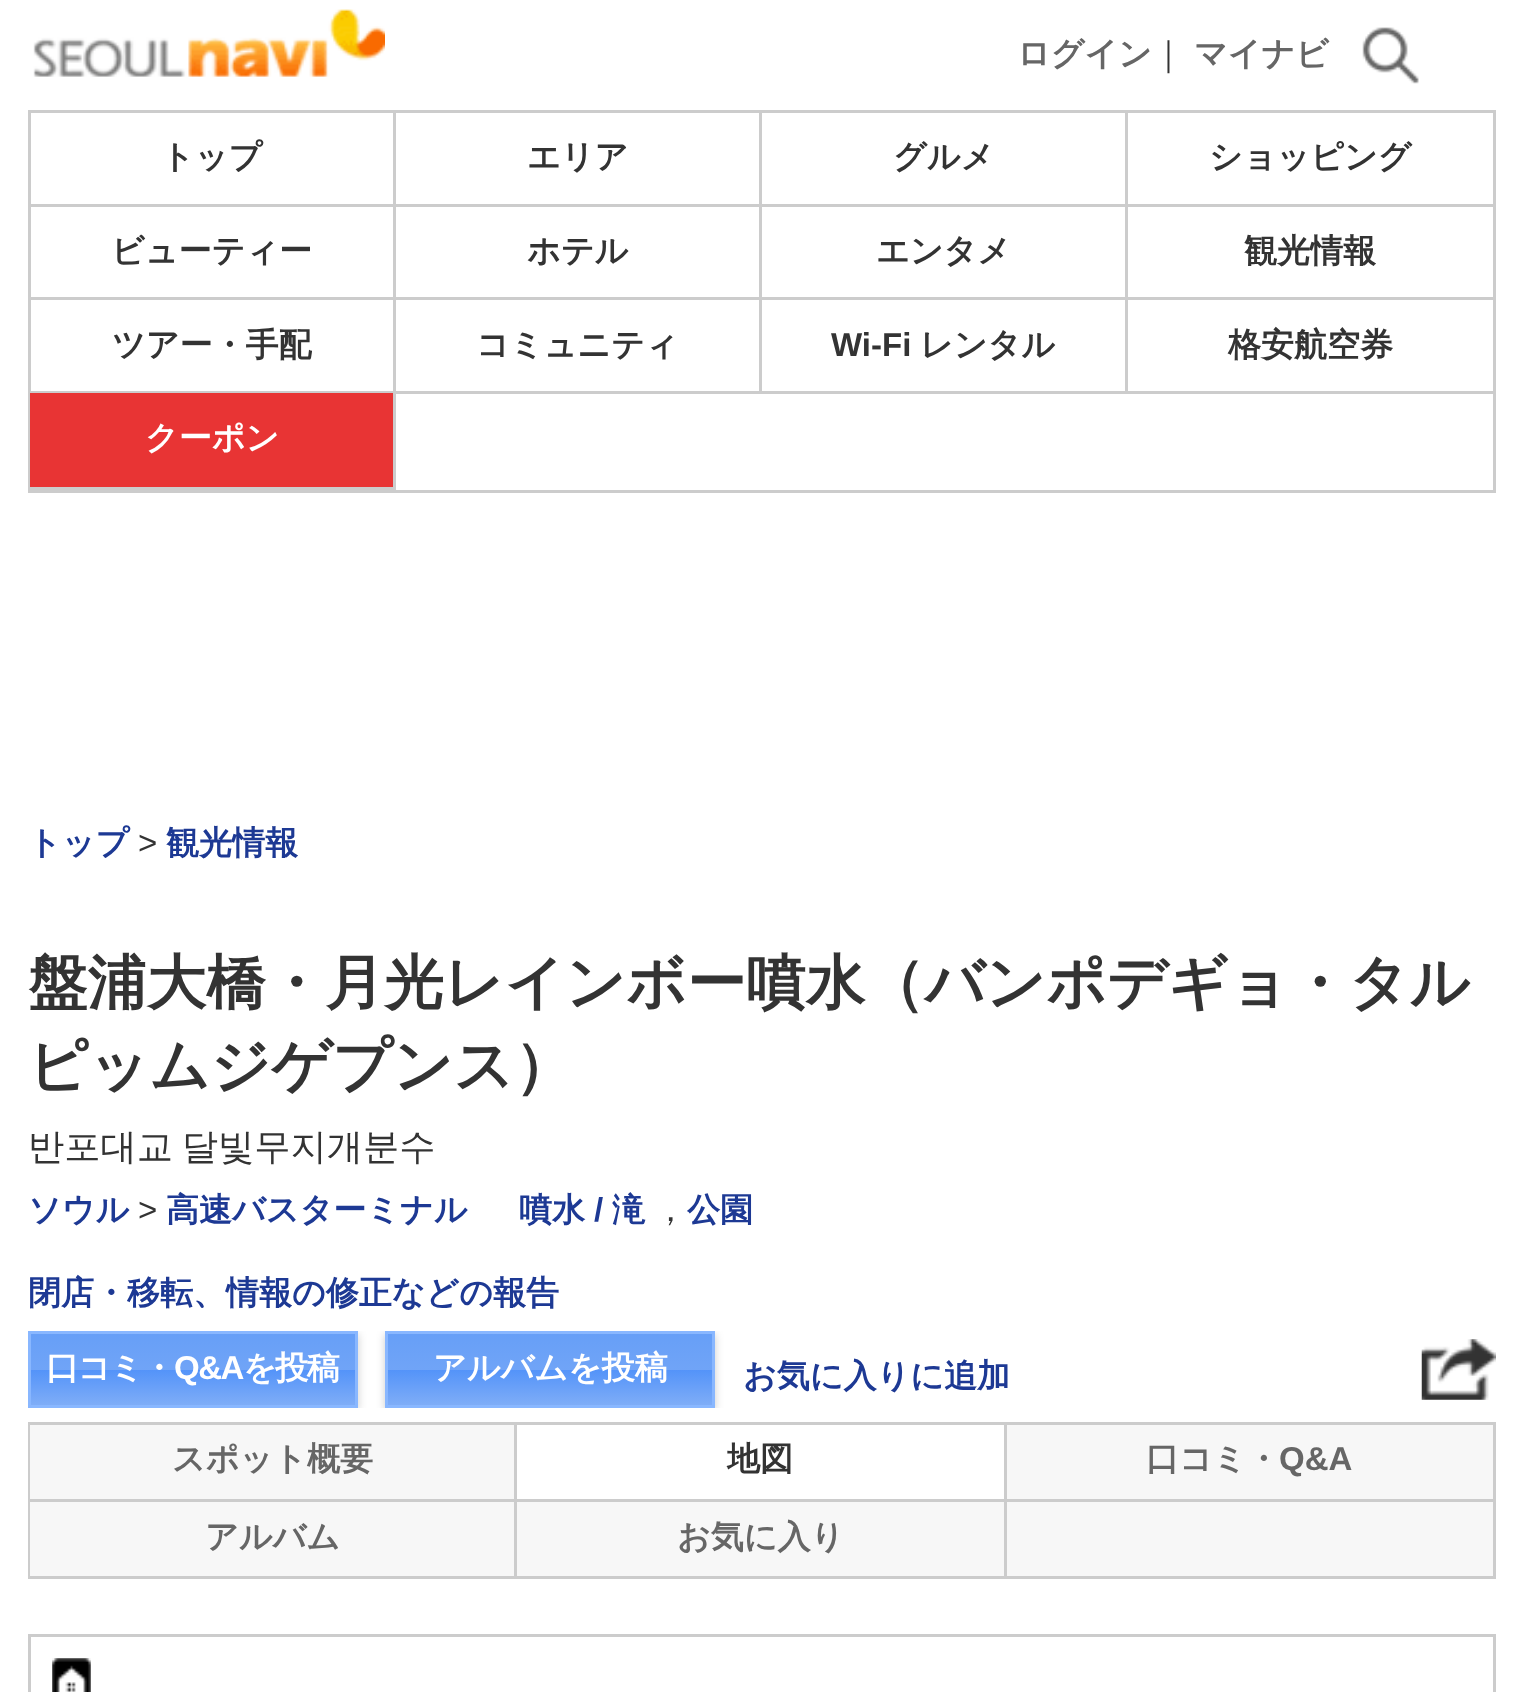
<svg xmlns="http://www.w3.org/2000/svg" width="1521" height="1692">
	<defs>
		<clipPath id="clip1"><rect x="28" y="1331" width="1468" height="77" /></clipPath>
		<linearGradient id="g1" gradientUnits="userSpaceOnUse" x1="30" y1="1334" x2="30" y2="1405"><stop offset="0" stop-color="#679FF7" /><stop offset="0.5" stop-color="#70A4F7" /><stop offset="0.5" stop-color="#5393F9" /><stop offset="1" stop-color="#7FADF7" /></linearGradient>
		<linearGradient id="g2" gradientUnits="userSpaceOnUse" x1="388" y1="1334" x2="388" y2="1405"><stop offset="0" stop-color="#679FF7" /><stop offset="0.5" stop-color="#70A4F7" /><stop offset="0.5" stop-color="#5393F9" /><stop offset="1" stop-color="#7FADF7" /></linearGradient>
	</defs>
	<rect width="100%" height="100%" fill="#FFFFFF" />
	<image x="33" y="9" width="352" height="68" href="assets/img1.png" />
	<text x="1017" y="65" font-family="WenQuanYi Zen Hei" font-size="33" font-weight="700" fill="#666666">ログイン</text>
	<text x="1152" y="65" font-family="WenQuanYi Zen Hei" font-size="33" font-weight="500" fill="#333333">｜</text>
	<text x="1194" y="65" font-family="WenQuanYi Zen Hei" font-size="33" font-weight="700" fill="#666666">マイナビ</text>
	<image x="1362" y="27" width="57" height="57" href="assets/img2.png" />
	<rect x="28" y="110" width="1468" height="3" fill="#CCCCCC" />
	<rect x="28" y="490" width="1468" height="3" fill="#CCCCCC" />
	<rect x="1493" y="113" width="3" height="377" fill="#CCCCCC" />
	<rect x="28" y="113" width="3" height="377" fill="#CCCCCC" />
	<rect x="393" y="113" width="3" height="93" fill="#CCCCCC" />
	<rect x="30" y="204" width="366" height="3" fill="#CCCCCC" />
	<text x="161" y="168" font-family="WenQuanYi Zen Hei" font-size="33" font-weight="700" fill="#333333">トップ</text>
	<rect x="759" y="113" width="3" height="93" fill="#CCCCCC" />
	<rect x="396" y="204" width="366" height="3" fill="#CCCCCC" />
	<text x="527" y="168" font-family="WenQuanYi Zen Hei" font-size="33" font-weight="700" fill="#333333">エリア</text>
	<rect x="1125" y="113" width="3" height="93" fill="#CCCCCC" />
	<rect x="762" y="204" width="731" height="3" fill="#CCCCCC" />
	<g font-family="WenQuanYi Zen Hei" font-size="33" font-weight="700" fill="#333333">
		<text x="893" y="168">グルメ</text>
		<text x="1209" y="168">ショッピング</text>
	</g>
	<rect x="393" y="206" width="3" height="284" fill="#CCCCCC" />
	<rect x="30" y="297" width="366" height="3" fill="#CCCCCC" />
	<text x="111" y="262" font-family="WenQuanYi Zen Hei" font-size="33" font-weight="700" fill="#333333">ビューティー</text>
	<rect x="759" y="206" width="3" height="187" fill="#CCCCCC" />
	<rect x="396" y="297" width="366" height="3" fill="#CCCCCC" />
	<text x="527" y="262" font-family="WenQuanYi Zen Hei" font-size="33" font-weight="700" fill="#333333">ホテル</text>
	<rect x="1125" y="206" width="3" height="187" fill="#CCCCCC" />
	<rect x="762" y="297" width="731" height="3" fill="#CCCCCC" />
	<g font-family="WenQuanYi Zen Hei" font-size="33" font-weight="700" fill="#333333">
		<text x="876" y="262">エンタメ</text>
		<text x="1244" y="262">観光情報</text>
	</g>
	<rect x="30" y="391" width="366" height="2" fill="#CCCCCC" />
	<text x="112" y="356" font-family="WenQuanYi Zen Hei" font-size="33" font-weight="700" fill="#333333">ツアー・手配</text>
	<rect x="396" y="391" width="1097" height="3" fill="#CCCCCC" />
	<text x="476" y="356" font-family="WenQuanYi Zen Hei" font-size="33" font-weight="700" fill="#333333">コミュニティ</text>
	<text x="831" y="356" font-family="Liberation Sans" font-size="33" font-weight="700" fill="#333333">Wi-Fi</text>
	<g font-family="WenQuanYi Zen Hei" font-size="33" font-weight="700" fill="#333333">
		<text x="920" y="356">レンタル</text>
		<text x="1228" y="356">格安航空券</text>
	</g>
	<rect x="30" y="393" width="363" height="94" fill="#E83434" />
	<rect x="30" y="487" width="366" height="3" fill="#CCCCCC" />
	<text x="145" y="449" font-family="WenQuanYi Zen Hei" font-size="33" font-weight="700" fill="#FFFFFF">クーポン</text>
	<text x="28" y="854" font-family="WenQuanYi Zen Hei" font-size="33" font-weight="700" fill="#1D3994">トップ</text>
	<text x="138" y="854" font-family="Liberation Sans" font-size="33" fill="#333333">&gt;</text>
	<text x="166" y="854" font-family="WenQuanYi Zen Hei" font-size="33" font-weight="700" fill="#1D3994">観光情報</text>
	<g font-family="WenQuanYi Zen Hei" font-size="59.4" font-weight="700" fill="#333333">
		<text x="28" y="1003">盤浦大橋・月光レインボー噴水（バンポデギョ・タル</text>
		<text x="28" y="1086">ピッムジゲプンス）</text>
	</g>
	<text x="28" y="1159" word-spacing="-2" font-family="WenQuanYi Zen Hei" font-size="36.25" font-weight="500" fill="#333333">반포대교 달빛무지개분수</text>
	<text x="28" y="1221" font-family="WenQuanYi Zen Hei" font-size="33" font-weight="700" fill="#1D3994">ソウル</text>
	<text x="138" y="1221" font-family="Liberation Sans" font-size="33" fill="#333333">&gt;</text>
	<g font-family="WenQuanYi Zen Hei" font-size="33" font-weight="700" fill="#1D3994">
		<text x="166" y="1221">高速バスターミナル</text>
		<text x="519" y="1221">噴水</text>
	</g>
	<text x="594" y="1221" font-family="Liberation Sans" font-size="33" font-weight="700" fill="#1D3994">/</text>
	<g font-family="WenQuanYi Zen Hei" font-size="33" font-weight="700" fill="#1D3994">
		<text x="612" y="1221">滝</text>
		<text x="687" y="1221">公園</text>
	</g>
	<text x="654" y="1221" font-family="WenQuanYi Zen Hei" font-size="33" font-weight="500" fill="#333333">，</text>
	<text x="28" y="1304" font-family="WenQuanYi Zen Hei" font-size="33" font-weight="700" fill="#1D3994">閉店・移転、情報の修正などの報告</text>
	<rect x="517" y="1425" width="976" height="151" fill="#F7F7F7" />
	<rect x="29.5" y="1423.5" width="1465" height="154" fill="none" stroke="#CCCCCC" stroke-width="3" />
	<g clip-path="url(#clip1)">
		<rect x="28" y="1334" width="330" height="77" fill="#000000" fill-opacity="0.2" filter="blur(4px)" />
	</g>
	<rect x="31" y="1334" width="324" height="71" fill="url(#g1)" />
	<rect x="29.5" y="1332.5" width="327" height="74" fill="none" stroke="#89B7FF" stroke-width="3" />
	<text x="46" y="1379" font-family="WenQuanYi Zen Hei" font-size="33" font-weight="700" letter-spacing="-1.5" fill="#FFFFFF">口コミ・</text>
	<text x="174" y="1379" font-family="Liberation Sans" font-size="33" font-weight="700" letter-spacing="-1.5" fill="#FFFFFF">Q&amp;A</text>
	<text x="243" y="1379" font-family="WenQuanYi Zen Hei" font-size="33" font-weight="700" letter-spacing="-1.5" fill="#FFFFFF">を投稿</text>
	<g clip-path="url(#clip1)">
		<rect x="385" y="1334" width="330" height="77" fill="#000000" fill-opacity="0.2" filter="blur(4px)" />
	</g>
	<rect x="388" y="1334" width="324" height="71" fill="url(#g2)" />
	<rect x="386.5" y="1332.5" width="327" height="74" fill="none" stroke="#89B7FF" stroke-width="3" />
	<text x="433" y="1379" font-family="WenQuanYi Zen Hei" font-size="33" font-weight="700" fill="#FFFFFF">アルバムを投稿</text>
	<text x="743" y="1387" font-family="WenQuanYi Zen Hei" font-size="33" font-weight="700" fill="#1D3994">お気に入りに追加</text>
	<image x="1421" y="1339" width="75" height="61" href="assets/img3.png" />
	<rect x="30" y="1425" width="484" height="74" fill="#F7F7F7" />
	<rect x="514" y="1425" width="3" height="151" fill="#CCCCCC" />
	<rect x="30" y="1499" width="487" height="3" fill="#CCCCCC" />
	<text x="172" y="1470" font-family="WenQuanYi Zen Hei" font-size="33" font-weight="700" fill="#666666">スポット概要</text>
	<rect x="1004" y="1425" width="3" height="151" fill="#CCCCCC" />
	<rect x="517" y="1499" width="976" height="3" fill="#CCCCCC" />
	<rect x="517" y="1425" width="487" height="74" fill="#FFFFFF" />
	<text x="727" y="1470" font-family="WenQuanYi Zen Hei" font-size="33" font-weight="700" fill="#333333">地図</text>
	<text x="1146" y="1470" font-family="WenQuanYi Zen Hei" font-size="33" font-weight="700" fill="#666666">口コミ・</text>
	<text x="1279" y="1470" font-family="Liberation Sans" font-size="33" font-weight="700" fill="#666666">Q&amp;A</text>
	<rect x="30" y="1502" width="484" height="74" fill="#F7F7F7" />
	<g font-family="WenQuanYi Zen Hei" font-size="33" font-weight="700" fill="#666666">
		<text x="205" y="1548">アルバム</text>
		<text x="677" y="1548">お気に入り</text>
	</g>
	<rect x="29.5" y="1635.5" width="1465" height="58" fill="none" stroke="#CCCCCC" stroke-width="3" />
	<image x="52" y="1658" width="39" height="34" href="assets/img4.png" />
</svg>
